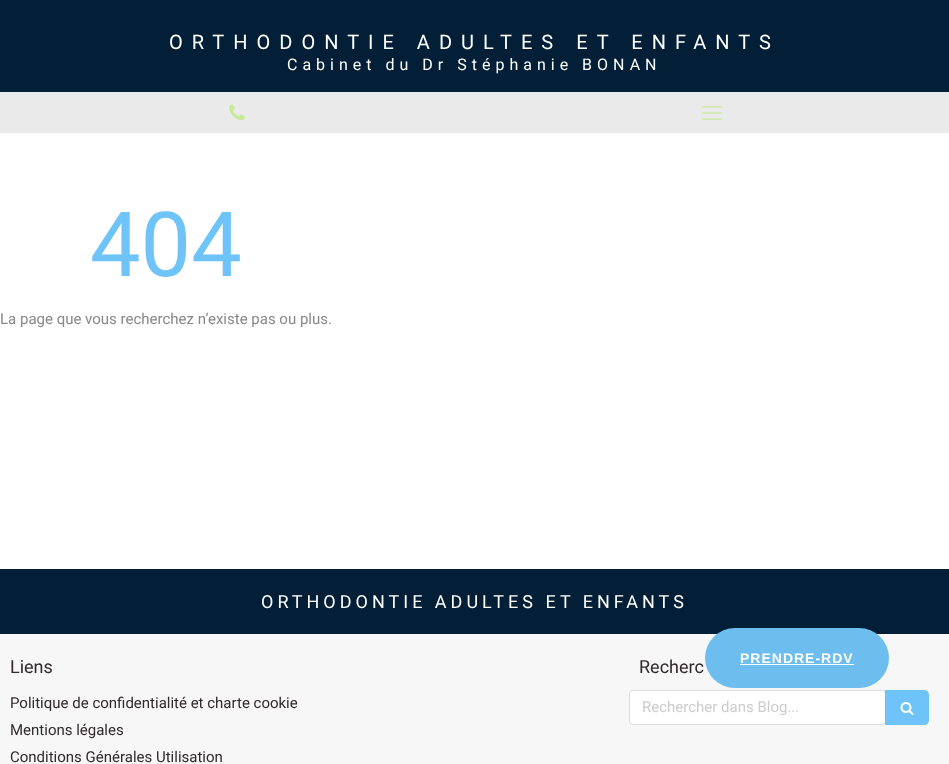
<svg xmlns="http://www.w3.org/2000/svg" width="949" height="764">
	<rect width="100%" height="100%" fill="#FFFFFF" />
	<rect x="0" y="0" width="949" height="92" fill="#031F37" />
	<text x="169" y="49" font-family="Roboto" font-size="20" letter-spacing="9" fill="#FFFFFF">ORTHODONTIE ADULTES ET ENFANTS</text>
	<text x="287" y="70" font-family="Roboto" font-size="16" letter-spacing="5" fill="#FFFFFF">Cabinet du Dr Stéphanie BONAN</text>
	<rect x="0" y="92" width="949" height="41" fill="#EAEAEA" />
	<image x="229" y="104" width="16" height="17" href="assets/img1.png" />
	<image x="702" y="106" width="20" height="14" href="assets/img2.png" />
	<text x="90" y="276" font-family="Roboto" font-size="90" fill="#6EC4F8">404</text>
	<text x="0" y="324" font-family="Roboto" font-size="15" fill="#888888">La page que vous recherchez n’existe pas ou plus.</text>
	<rect x="0" y="569" width="949" height="65" fill="#031F37" />
	<text x="261" y="608" font-family="Roboto" font-size="18" letter-spacing="4" fill="#FFFFFF">ORTHODONTIE ADULTES ET ENFANTS</text>
	<rect x="0" y="634" width="949" height="130" fill="#F7F7F7" />
	<text x="10" y="673" font-family="Roboto" font-size="18" fill="#302A2D">Liens</text>
	<g font-family="Roboto" font-size="15" fill="#302A2D">
		<text x="10" y="708">Politique de confidentialité et charte cookie</text>
		<text x="10" y="735">Mentions légales</text>
		<text x="10" y="762">Conditions Générales Utilisation</text>
	</g>
	<text x="639" y="673" font-family="Roboto" font-size="18" fill="#302A2D">Recherc</text>
	<rect x="629.5" y="690.5" width="256" height="34" rx="3.5" fill="#FFFFFF" stroke="#DDDDDD" />
	<text x="642" y="712" font-family="Roboto" font-size="15" fill="#CCCCCC">Rechercher dans Blog...</text>
	<path d="M885 690H924C927 690 929 692 929 695V720C929 723 927 725 924 725H885Z" fill="#6EC4F8" />
	<image x="900" y="702" width="14" height="13" href="assets/img3.png" />
	<rect x="705" y="628" width="184" height="60" rx="30" fill="#6DBEEF" />
	<text x="740" y="663" font-family="Liberation Sans" font-size="14" font-weight="700" letter-spacing="1" fill="#FFFFFF">PRENDRE-RDV</text>
	<rect x="740" y="664" width="114" height="1" fill="#FFFFFF" />
</svg>
